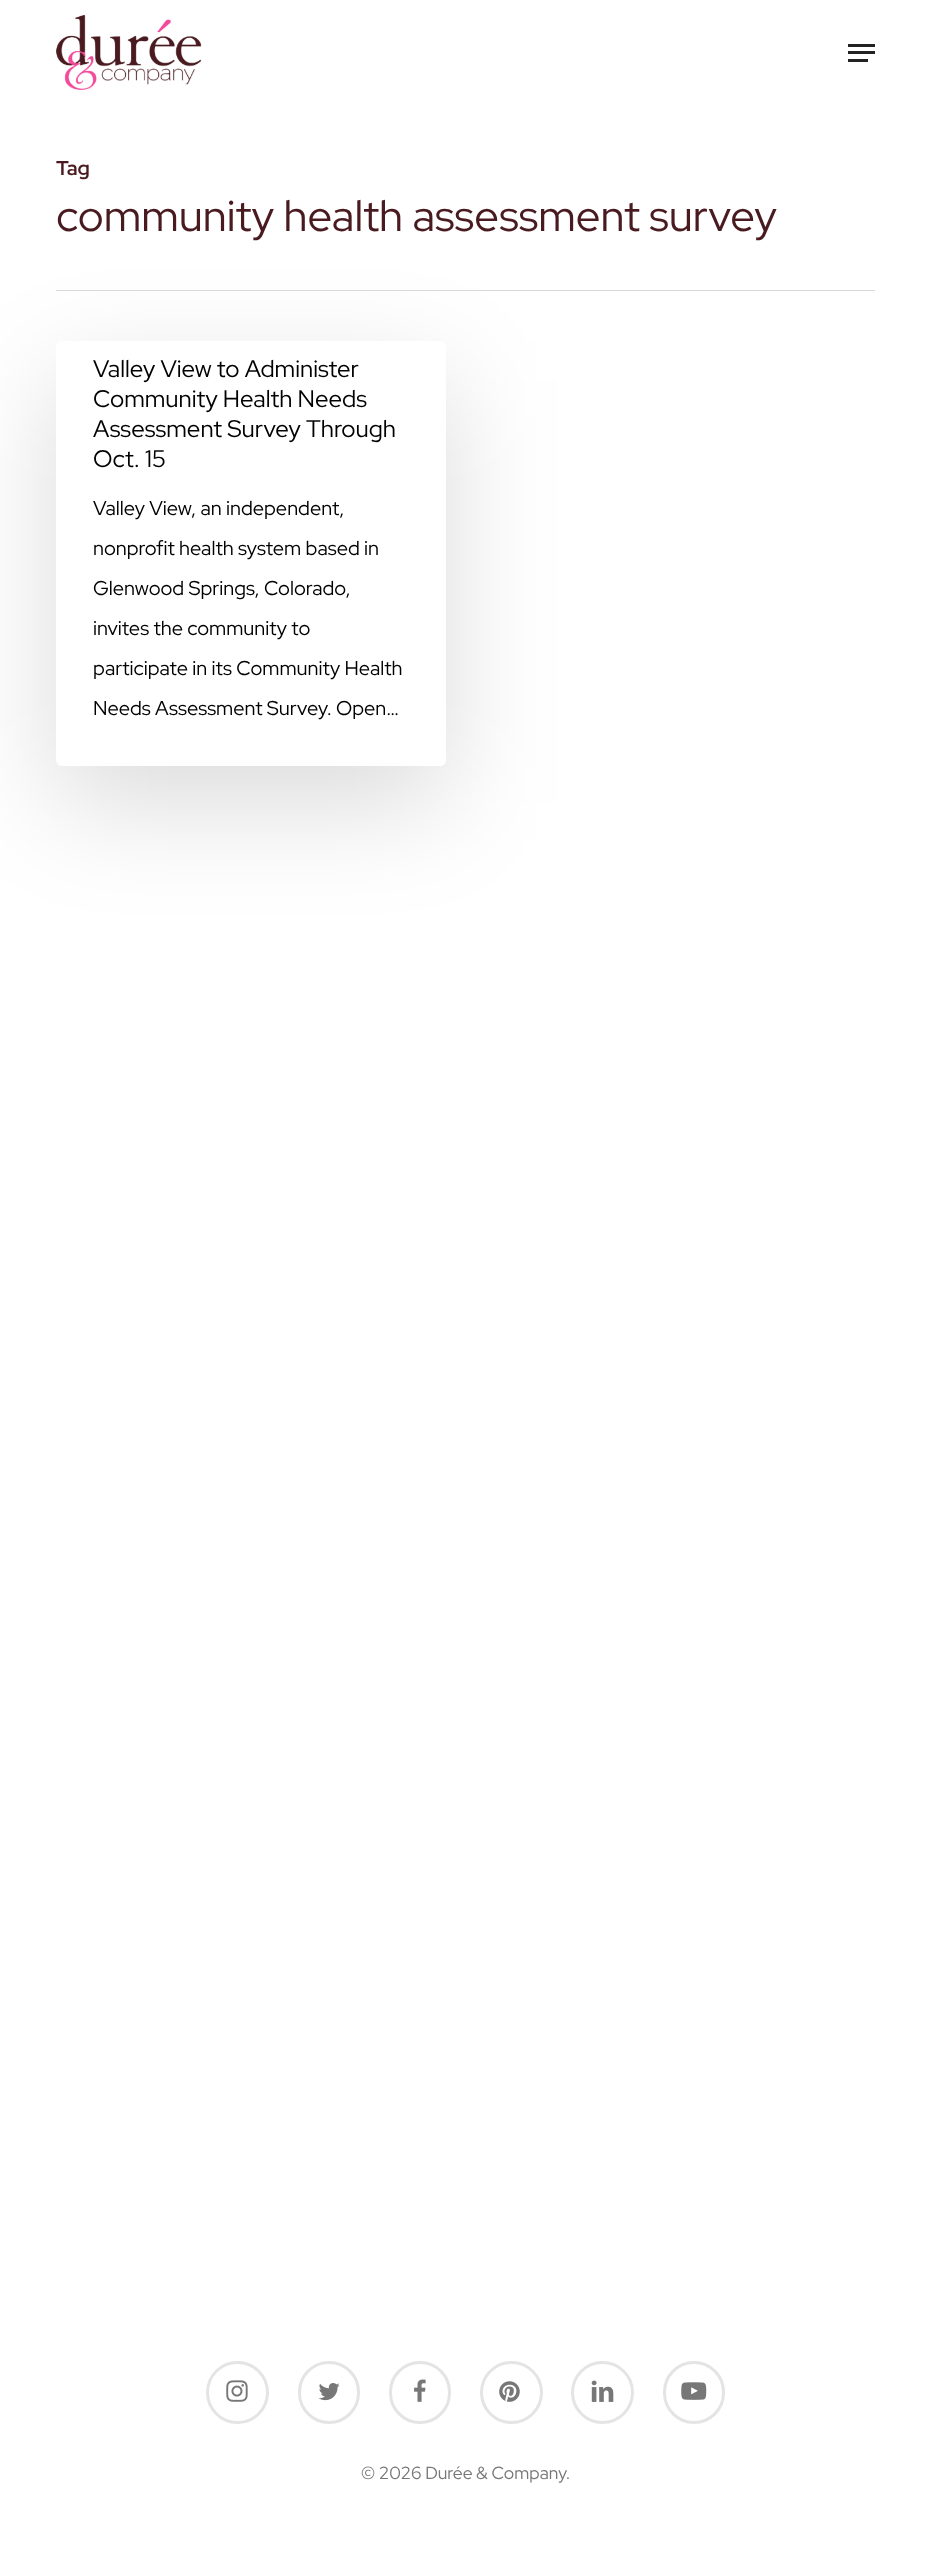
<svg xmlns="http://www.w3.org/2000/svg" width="931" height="2573">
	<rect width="100%" height="100%" fill="#FFFFFF" />
	<image x="56" y="15" width="146" height="75" href="assets/img1.png" />
	<rect x="848" y="44" width="27" height="3" fill="#222222" />
	<rect x="848" y="59" width="20" height="3" fill="#222222" />
	<rect x="848" y="51" width="27" height="3" fill="#222222" />
	<rect x="56" y="379" width="390" height="425" rx="6" fill="#000000" fill-opacity="0.14" filter="blur(56px)" />
	<rect x="56" y="290" width="819" height="1" fill="#D9D9D9" />
	<text x="56" y="175" font-family="Red Hat Display" font-size="20" font-weight="700" fill="#491B20">Tag</text>
	<text x="56" y="231" font-family="Red Hat Display" font-size="43.75" fill="#491B20">community health assessment survey</text>
	<rect x="56" y="341" width="390" height="425" rx="6" fill="#FFFFFF" />
	<g font-family="Red Hat Display" font-size="24" fill="#000000">
		<text x="93" y="377">Valley View to Administer</text>
		<text x="93" y="407">Community Health Needs</text>
		<text x="93" y="437">Assessment Survey Through</text>
		<text x="93" y="467">Oct. 15</text>
	</g>
	<g font-family="Red Hat Display" font-size="20" fill="#000000">
		<text x="93" y="515">Valley View, an independent,</text>
		<text x="93" y="555">nonprofit health system based in</text>
		<text x="93" y="595">Glenwood Springs, Colorado,</text>
		<text x="93" y="635">invites the community to</text>
		<text x="93" y="675">participate in its Community Health</text>
		<text x="93" y="715">Needs Assessment Survey. Open…</text>
	</g>
	<image x="226" y="2380" width="22" height="22" href="assets/img2.png" />
	<circle cx="237.5" cy="2392.5" r="30" fill="none" stroke="#E4E4E4" stroke-width="3" />
	<image x="318" y="2383" width="22" height="18" href="assets/img3.png" />
	<rect x="299.5" y="2362.5" width="59" height="60" rx="29.5" fill="none" stroke="#E4E4E4" stroke-width="3" />
	<image x="414" y="2379" width="12" height="23" href="assets/img4.png" />
	<rect x="390.5" y="2362.5" width="59" height="60" rx="29.5" fill="none" stroke="#E4E4E4" stroke-width="3" />
	<image x="499" y="2381" width="21" height="21" href="assets/img5.png" />
	<circle cx="511.5" cy="2392.5" r="30" fill="none" stroke="#E4E4E4" stroke-width="3" />
	<image x="591" y="2380" width="23" height="22" href="assets/img6.png" />
	<circle cx="602.5" cy="2392.5" r="30" fill="none" stroke="#E4E4E4" stroke-width="3" />
	<image x="681" y="2382" width="26" height="18" href="assets/img7.png" />
	<rect x="664.5" y="2362.5" width="59" height="60" rx="29.5" fill="none" stroke="#E4E4E4" stroke-width="3" />
	<text x="361" y="2479" font-family="Red Hat Display" font-size="17.5" fill="#777777">© 2026 Durée &amp; Company.</text>
</svg>
